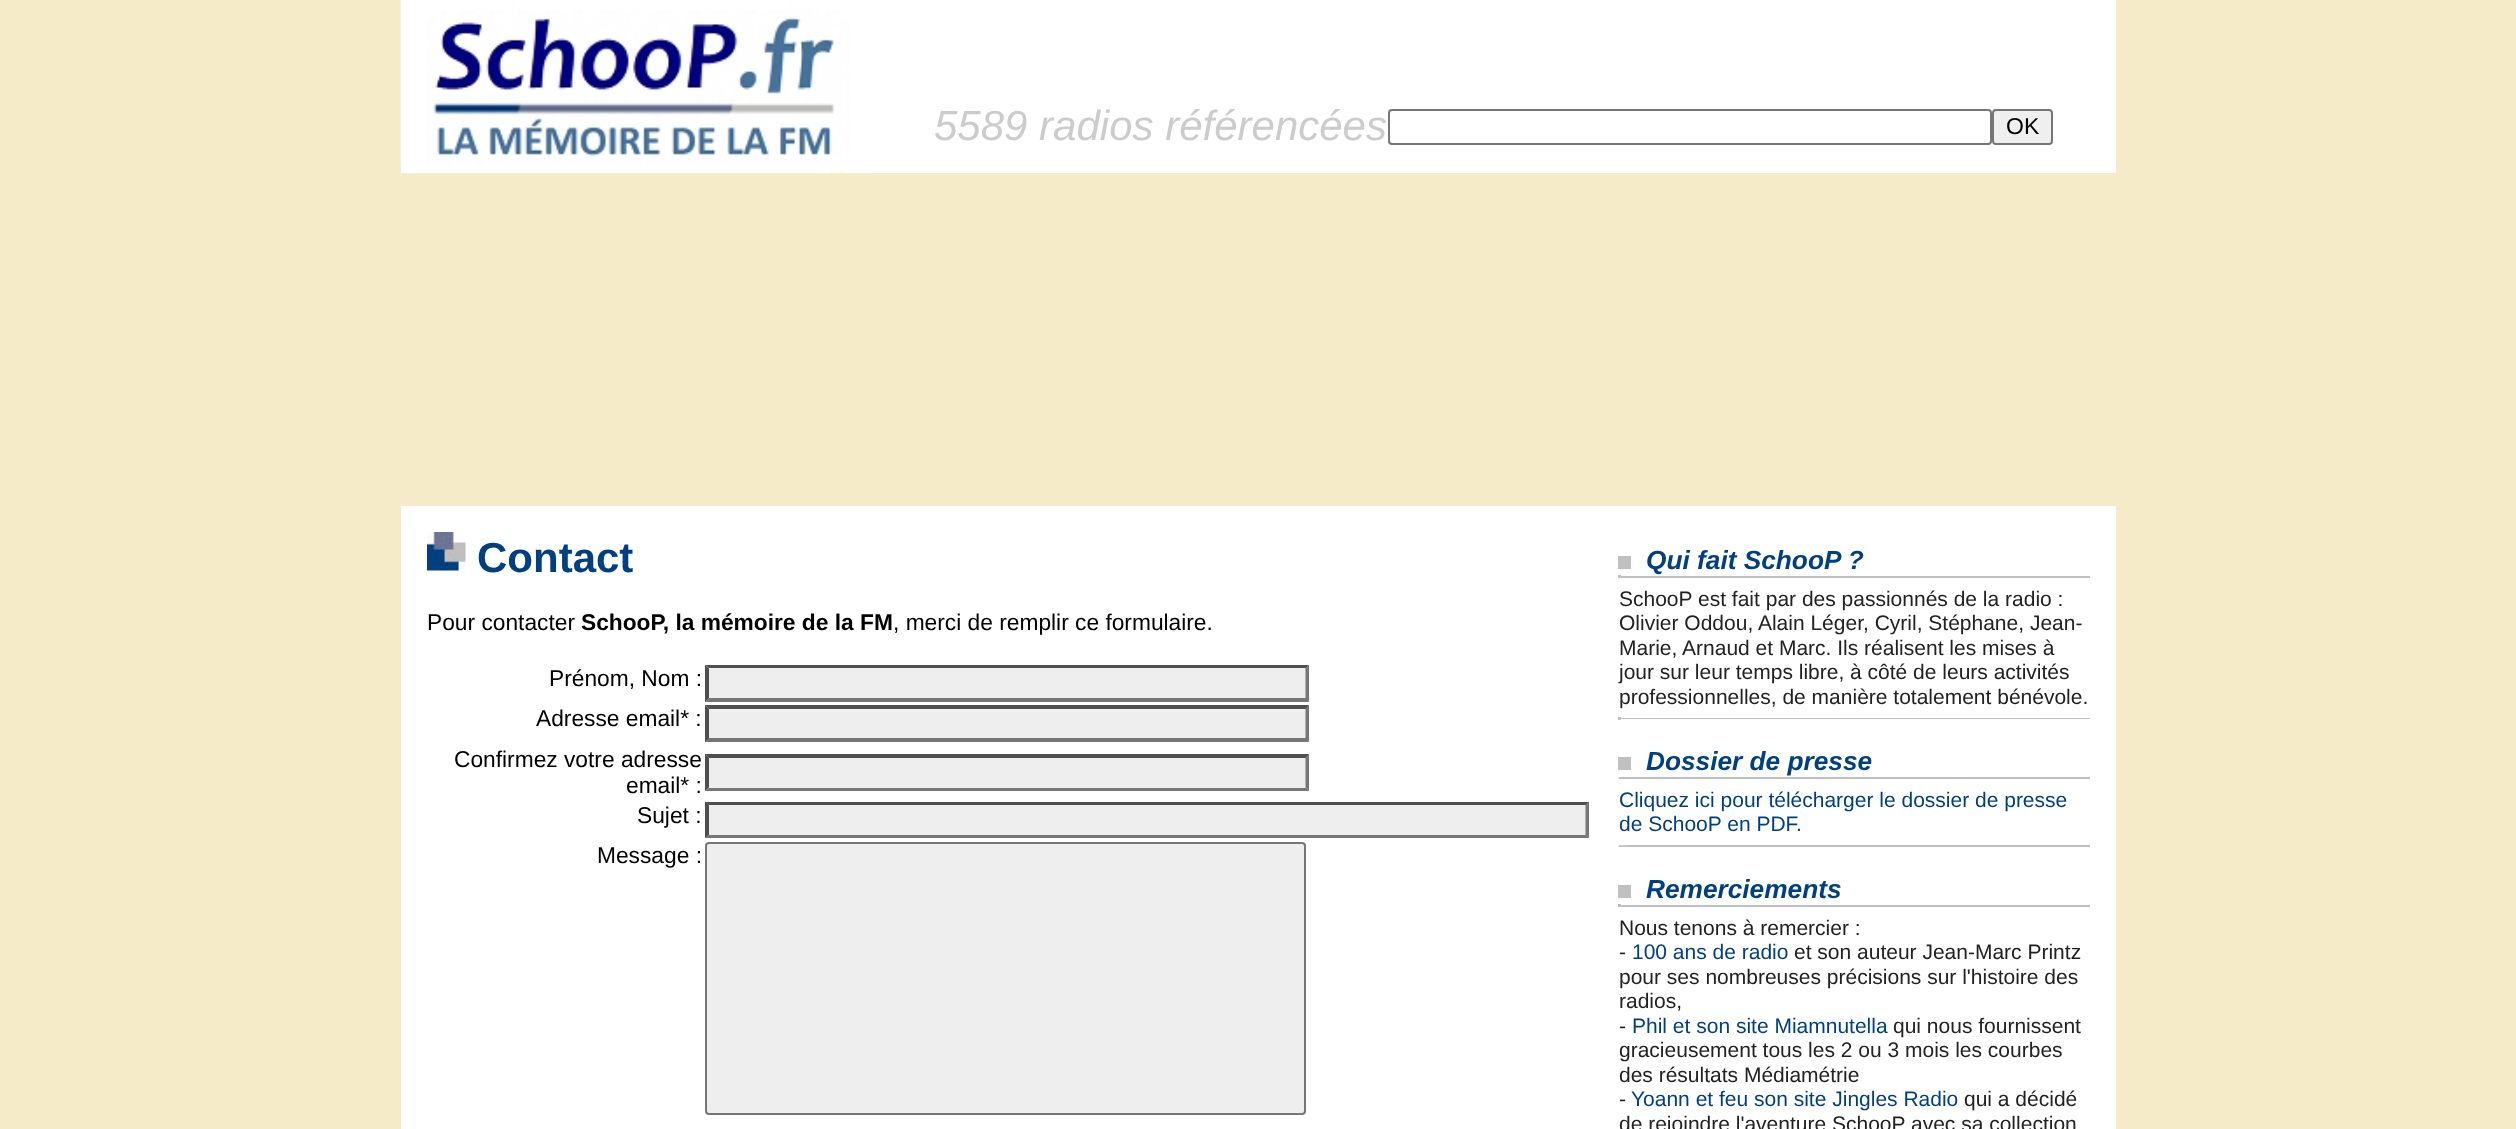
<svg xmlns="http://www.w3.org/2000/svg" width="2516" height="1129">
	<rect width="100%" height="100%" fill="#F6EBC9" />
	<rect x="871" y="0" width="1245" height="173" fill="#FFFFFF" />
	<image x="400" y="0" width="472" height="174" href="assets/img1.png" />
	<text x="934" y="140" font-family="Liberation Sans" font-size="42" font-style="italic" fill="#CCCCCC">5589 radios référencées</text>
	<rect x="1389" y="110" width="602" height="34" rx="3" fill="none" stroke="#767676" stroke-width="2" />
	<rect x="1993" y="110" width="59" height="34" rx="3" fill="#EFEFEF" stroke="#767676" stroke-width="2" />
	<text x="2006" y="134" font-family="Liberation Sans" font-size="23" fill="#000000">OK</text>
	<rect x="401" y="506" width="1715" height="623" fill="#FFFFFF" />
	<image x="427" y="532" width="39" height="40" href="assets/img2.png" />
	<text x="477" y="572" font-family="Liberation Sans" font-size="42" font-weight="700" fill="#004080">Contact</text>
	<text x="427" y="630" font-family="Liberation Sans" font-size="22.75" fill="#000000">Pour contacter</text>
	<text x="581" y="630" font-family="Liberation Sans" font-size="22.75" font-weight="700" fill="#000000">SchooP, la mémoire de la FM</text>
	<g font-family="Liberation Sans" font-size="22.75" fill="#000000">
		<text x="893" y="630">, merci de remplir ce formulaire.</text>
		<text x="549" y="686">Prénom, Nom :</text>
	</g>
	<rect x="705" y="665" width="604" height="37" fill="#EEEEEE" />
	<path d="M705 665H1309L1306 668H709Z" fill="#4F4F4F" />
	<path d="M1309 665V702L1305.5 698V668.5Z" fill="#767676" />
	<path d="M1309 702H705L709 698H1306Z" fill="#767676" />
	<path d="M705 702V665L709 668.5V698Z" fill="#4F4F4F" />
	<text x="536" y="726" font-family="Liberation Sans" font-size="22.75" fill="#000000">Adresse email* :</text>
	<rect x="705" y="705" width="604" height="37" fill="#EEEEEE" />
	<path d="M705 705H1309L1306 709H709Z" fill="#4F4F4F" />
	<path d="M1309 705V742L1305.5 738.5V709Z" fill="#767676" />
	<path d="M1309 742H705L709 738H1306Z" fill="#767676" />
	<path d="M705 742V705L709 709V738.5Z" fill="#4F4F4F" />
	<g font-family="Liberation Sans" font-size="22.75" fill="#000000">
		<text x="454" y="767">Confirmez votre adresse</text>
		<text x="626" y="793">email* :</text>
	</g>
	<rect x="705" y="754" width="604" height="37" fill="#EEEEEE" />
	<path d="M705 754H1309L1306 758H709Z" fill="#4F4F4F" />
	<path d="M1309 754V791L1305.5 787.5V758Z" fill="#767676" />
	<path d="M1309 791H705L709 788H1306Z" fill="#767676" />
	<path d="M705 791V754L709 758V787.5Z" fill="#4F4F4F" />
	<text x="637" y="823" font-family="Liberation Sans" font-size="22.75" fill="#000000">Sujet :</text>
	<rect x="705" y="802" width="884" height="36" fill="#EEEEEE" />
	<path d="M705 802H1589L1586 805H709Z" fill="#4F4F4F" />
	<path d="M1589 801.5V838L1585.5 835V805Z" fill="#767676" />
	<path d="M1589 838H705L709 835H1586Z" fill="#767676" />
	<path d="M705 838V801.5L709 805V835Z" fill="#4F4F4F" />
	<text x="597" y="863" font-family="Liberation Sans" font-size="22.75" fill="#000000">Message :</text>
	<rect x="706" y="843" width="599" height="271" rx="3" fill="#EEEEEE" stroke="#767676" stroke-width="2" />
	<rect x="1618" y="556" width="13" height="13" fill="#C0C0C0" />
	<text x="1646" y="569" font-family="Liberation Sans" font-size="26.25" font-weight="700" font-style="italic" fill="#004080">Qui fait SchooP ?</text>
	<rect x="1619" y="576" width="471" height="2" fill="#C0C0C0" />
	<rect x="1618" y="575" width="3" height="3" fill="#C0C0C0" />
	<g font-family="Liberation Sans" font-size="21" fill="#222222">
		<text x="1619" y="606">SchooP est fait par des passionnés de la radio :</text>
		<text x="1619" y="630">Olivier Oddou, Alain Léger, Cyril, Stéphane, Jean-</text>
		<text x="1619" y="655">Marie, Arnaud et Marc. Ils réalisent les mises à</text>
		<text x="1619" y="679">jour sur leur temps libre, à côté de leurs activités</text>
		<text x="1619" y="704">professionnelles, de manière totalement bénévole.</text>
	</g>
	<rect x="1620" y="708" width="2" height="1" fill="#FFFFFF" fill-opacity="0.25" />
	<rect x="1619" y="718" width="471" height="1" fill="#C0C0C0" />
	<rect x="1618" y="717" width="3" height="3" fill="#C0C0C0" />
	<rect x="1618" y="757" width="13" height="13" fill="#C0C0C0" />
	<text x="1646" y="770" font-family="Liberation Sans" font-size="26.25" font-weight="700" font-style="italic" fill="#004080">Dossier de presse</text>
	<rect x="1619" y="777" width="471" height="2" fill="#C0C0C0" />
	<image x="1618" y="777" width="1" height="2" href="assets/img3.png" />
	<g font-family="Liberation Sans" font-size="21" fill="#004080">
		<text x="1619" y="807">Cliquez ici pour télécharger le dossier de presse</text>
		<text x="1619" y="831">de SchooP en PDF.</text>
	</g>
	<rect x="1619" y="845" width="471" height="2" fill="#C0C0C0" />
	<image x="1619" y="845" width="9" height="1" href="assets/img5.png" />
	<image x="1618" y="845" width="3" height="2" href="assets/img4.png" />
	<rect x="1618" y="885" width="13" height="13" fill="#C0C0C0" />
	<text x="1646" y="898" font-family="Liberation Sans" font-size="26.25" font-weight="700" font-style="italic" fill="#004080">Remerciements</text>
	<rect x="1619" y="905" width="471" height="2" fill="#C0C0C0" />
	<rect x="1618" y="904" width="3" height="3" fill="#C0C0C0" />
	<g font-family="Liberation Sans" font-size="21" fill="#222222">
		<text x="1619" y="935">Nous tenons à remercier :</text>
		<text x="1619" y="959">-</text>
	</g>
	<text x="1632" y="959" font-family="Liberation Sans" font-size="21" fill="#004080">100 ans de radio</text>
	<g font-family="Liberation Sans" font-size="21" fill="#222222">
		<text x="1794" y="959">et son auteur Jean-Marc Printz</text>
		<text x="1619" y="984">pour ses nombreuses précisions sur l'histoire des</text>
		<text x="1619" y="1008">radios,</text>
		<text x="1619" y="1033">-</text>
	</g>
	<text x="1632" y="1033" font-family="Liberation Sans" font-size="21" fill="#004080">Phil et son site Miamnutella</text>
	<g font-family="Liberation Sans" font-size="21" fill="#222222">
		<text x="1893" y="1033">qui nous fournissent</text>
		<text x="1619" y="1057">gracieusement tous les 2 ou 3 mois les courbes</text>
		<text x="1619" y="1082">des résultats Médiamétrie</text>
		<text x="1619" y="1106">-</text>
	</g>
	<text x="1631" y="1106" font-family="Liberation Sans" font-size="21" fill="#004080">Yoann et feu son site Jingles Radio</text>
	<g font-family="Liberation Sans" font-size="21" fill="#222222">
		<text x="1964" y="1106">qui a décidé</text>
		<text x="1619" y="1131">de rejoindre l'aventure SchooP avec sa collection</text>
	</g>
</svg>
